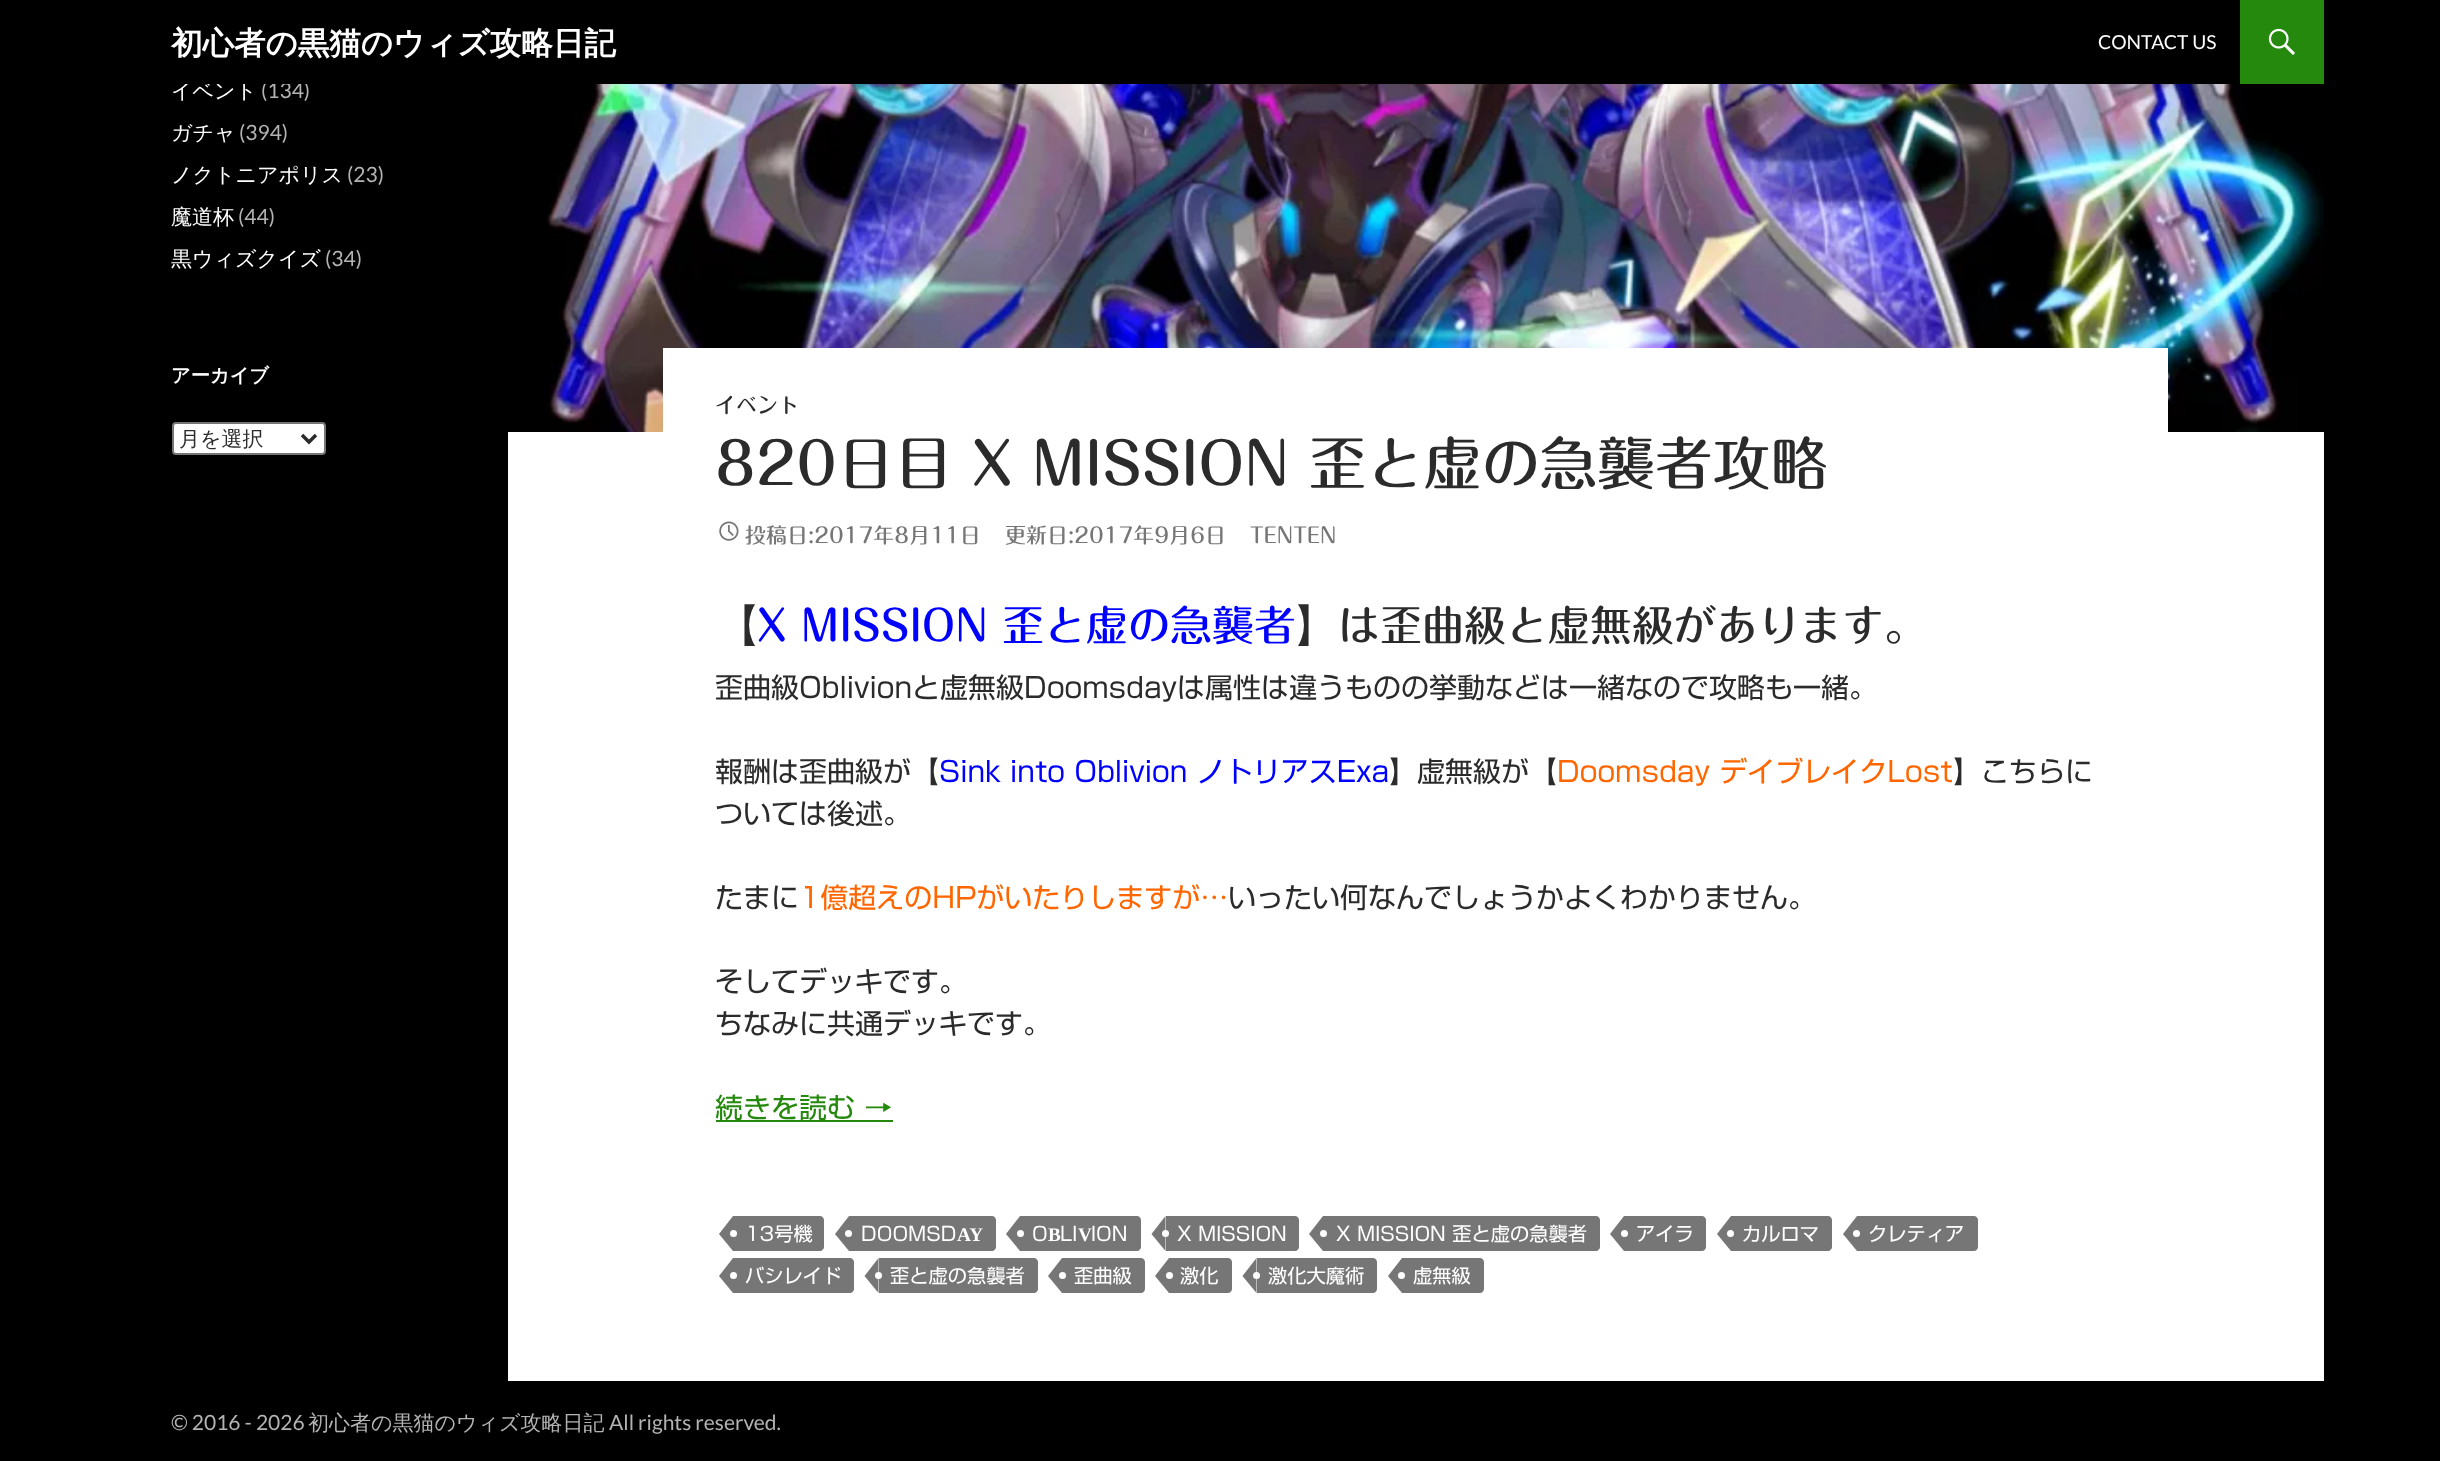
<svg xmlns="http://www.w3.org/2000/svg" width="2440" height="1461">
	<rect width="100%" height="100%" fill="#000000" />
	<rect x="508" y="432" width="1816" height="949" fill="#FFFFFF" />
	<text x="171" y="98" font-family="WenQuanYi Zen Hei" font-size="21" font-weight="500" fill="#FFFFFF">イベント</text>
	<text x="261" y="98" font-family="Lato" font-size="21" fill="#B3B3B3">(134)</text>
	<rect x="185" y="81" width="122" height="3" fill="#000000" />
	<text x="171" y="54" font-family="WenQuanYi Zen Hei" font-size="31.5" font-weight="700" fill="#FFFFFF">初心者の黒猫のウィズ攻略日記</text>
	<text x="2098" y="49" font-family="Lato" font-size="19.25" fill="#FFFFFF">CONTACT US</text>
	<rect x="2240" y="0" width="84" height="84" fill="#24890D" />
	<image x="2268" y="28" width="27" height="27" href="assets/img1.png" />
	<text x="171" y="140" font-family="WenQuanYi Zen Hei" font-size="21" font-weight="500" fill="#FFFFFF">ガチャ</text>
	<text x="239" y="140" font-family="Lato" font-size="21" fill="#B3B3B3">(394)</text>
	<text x="171" y="182" font-family="WenQuanYi Zen Hei" font-size="21" font-weight="500" fill="#FFFFFF">ノクトニアポリス</text>
	<text x="347" y="182" font-family="Lato" font-size="21" fill="#B3B3B3">(23)</text>
	<text x="171" y="224" font-family="WenQuanYi Zen Hei" font-size="21" font-weight="500" fill="#FFFFFF">魔道杯</text>
	<text x="238" y="224" font-family="Lato" font-size="21" fill="#B3B3B3">(44)</text>
	<text x="171" y="266" font-family="WenQuanYi Zen Hei" font-size="21" font-weight="500" fill="#FFFFFF">黒ウィズクイズ</text>
	<text x="325" y="266" font-family="Lato" font-size="21" fill="#B3B3B3">(34)</text>
	<text x="171" y="382" font-family="WenQuanYi Zen Hei" font-size="19.25" font-weight="700" fill="#FFFFFF">アーカイブ</text>
	<rect x="173" y="423" width="152" height="31" rx="3" fill="#FFFFFF" stroke="#767676" stroke-width="2" />
	<path d="M302 435L309 442L316 435" fill="none" stroke="#2B2B2B" stroke-width="3.5" />
	<text x="179" y="446" font-family="WenQuanYi Zen Hei" font-size="21" font-weight="500" fill="#2B2B2B">月を選択</text>
	<image x="508" y="84" width="1816" height="348" href="assets/img2.png" />
	<rect x="663" y="348" width="1505" height="84" fill="#FFFFFF" />
	<text x="715" y="413" font-family="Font" font-size="21" font-weight="500" fill="#2B2B2B">イベント</text>
	<text x="715" y="485" font-family="Font" font-size="57.75" font-weight="500" fill="#2B2B2B">820日目 X MISSION 歪と虚の急襲者攻略</text>
	<image x="719" y="521" width="20" height="20" href="assets/img3.png" />
	<g font-family="Font" font-size="21" font-weight="500" fill="#767676">
		<text x="745" y="543">投稿日:2017年8月11日</text>
		<text x="1005" y="543">更新日:2017年9月6日</text>
		<text x="1250" y="543">TENTEN</text>
	</g>
	<text x="715" y="641" font-family="Font" font-size="42" font-weight="500" fill="#2B2B2B">【</text>
	<text x="757" y="641" font-family="Font" font-size="42" font-weight="500" fill="#0000FF">X MISSION 歪と虚の急襲者</text>
	<text x="1296" y="641" font-family="Font" font-size="42" font-weight="500" fill="#2B2B2B">】は歪曲級と虚無級があります。</text>
	<g font-family="Font" font-size="28" fill="#2B2B2B">
		<text x="715" y="698">歪曲級Oblivionと虚無級Doomsdayは属性は違うものの挙動などは一緒なので攻略も一緒。</text>
		<text x="715" y="782">報酬は歪曲級が【</text>
	</g>
	<text x="939" y="782" font-family="Font" font-size="28" fill="#0000FF">Sink into Oblivion ノトリアスExa</text>
	<text x="1389" y="782" font-family="Font" font-size="28" fill="#2B2B2B">】虚無級が【</text>
	<text x="1557" y="782" font-family="Font" font-size="28" fill="#FF6600">Doomsday デイブレイクLost</text>
	<g font-family="Font" font-size="28" fill="#2B2B2B">
		<text x="1953" y="782">】こちらに</text>
		<text x="715" y="824">ついては後述。</text>
		<text x="715" y="908">たまに</text>
	</g>
	<text x="799" y="908" font-family="Font" font-size="28" fill="#FF6600">1億超えのHPがいたりしますが…</text>
	<g font-family="Font" font-size="28" fill="#2B2B2B">
		<text x="1228" y="908">いったい何なんでしょうかよくわかりません。</text>
		<text x="715" y="992">そしてデッキです。</text>
		<text x="715" y="1034">ちなみに共通デッキです。</text>
	</g>
	<rect x="716" y="1120" width="177" height="2" fill="#24890D" />
	<text x="715" y="1118" font-family="Font" font-size="28" fill="#24890D">続きを読む →</text>
	<path d="M733 1216H820C822 1216 824 1218 824 1220V1247C824 1249 822 1251 820 1251H733Z" fill="#767676" />
	<path d="M733 1216V1251L719 1234Z" fill="#767676" />
	<circle cx="733.5" cy="1233.5" r="3.5" fill="#FFFFFF" />
	<text x="745" y="1241" font-family="Font" font-size="19.25" fill="#FFFFFF">13号機</text>
	<path d="M849 1216H992C994 1216 996 1218 996 1220V1247C996 1249 994 1251 992 1251H849Z" fill="#767676" />
	<path d="M849 1216V1251L835 1234Z" fill="#767676" />
	<text x="861" y="1241" font-family="Font" font-size="19.25" fill="#FFFFFF">DOOMSD</text>
	<text x="957" y="1241" font-family="Liberation Serif" font-size="19.25" font-weight="700" fill="#FFFFFF">AY</text>
	<circle cx="848.5" cy="1233.5" r="3.5" fill="#FFFFFF" />
	<path d="M1020 1216H1137C1139 1216 1141 1218 1141 1220V1247C1141 1249 1139 1251 1137 1251H1020Z" fill="#767676" />
	<path d="M1020 1216V1251L1006 1234Z" fill="#767676" />
	<circle cx="1020.5" cy="1233.5" r="3.5" fill="#FFFFFF" />
	<text x="1032" y="1241" font-family="Font" font-size="19.25" fill="#FFFFFF">O</text>
	<text x="1048" y="1241" font-family="Liberation Serif" font-size="19.25" font-weight="700" fill="#FFFFFF">B</text>
	<text x="1060" y="1241" font-family="Font" font-size="19.25" fill="#FFFFFF">LI</text>
	<text x="1078" y="1241" font-family="Liberation Serif" font-size="19.25" font-weight="700" fill="#FFFFFF">V</text>
	<text x="1091" y="1241" font-family="Font" font-size="19.25" fill="#FFFFFF">ION</text>
	<path d="M1166 1216H1295C1297 1216 1299 1218 1299 1220V1247C1299 1249 1297 1251 1295 1251H1166Z" fill="#767676" />
	<path d="M1165.5 1216V1251L1151.5 1234Z" fill="#767676" />
	<text x="1177" y="1241" font-family="Font" font-size="19.25" fill="#FFFFFF">X MISSION</text>
	<circle cx="1165.5" cy="1233.5" r="3.5" fill="#FFFFFF" />
	<path d="M1323 1216H1596C1598 1216 1600 1218 1600 1220V1247C1600 1249 1598 1251 1596 1251H1323Z" fill="#767676" />
	<path d="M1323 1216V1251L1309 1234Z" fill="#767676" />
	<circle cx="1323.5" cy="1233.5" r="3.5" fill="#FFFFFF" />
	<text x="1336" y="1241" font-family="Font" font-size="19.25" fill="#FFFFFF">X MISSION 歪と虚の急襲者</text>
	<path d="M1624 1216H1702C1704 1216 1706 1218 1706 1220V1247C1706 1249 1704 1251 1702 1251H1624Z" fill="#767676" />
	<path d="M1624 1216V1251L1610 1234Z" fill="#767676" />
	<circle cx="1624.5" cy="1233.5" r="3.5" fill="#FFFFFF" />
	<text x="1636" y="1241" font-family="Font" font-size="19.25" fill="#FFFFFF">アイラ</text>
	<path d="M1731 1216H1828C1830 1216 1832 1218 1832 1220V1247C1832 1249 1830 1251 1828 1251H1731Z" fill="#767676" />
	<path d="M1731 1216V1251L1717 1234Z" fill="#767676" />
	<text x="1742" y="1241" font-family="Font" font-size="19.25" fill="#FFFFFF">カルロマ</text>
	<circle cx="1730.5" cy="1233.5" r="3.5" fill="#FFFFFF" />
	<path d="M1857 1216H1974C1976 1216 1978 1218 1978 1220V1247C1978 1249 1976 1251 1974 1251H1857Z" fill="#767676" />
	<path d="M1857 1216V1251L1843 1234Z" fill="#767676" />
	<text x="1868" y="1241" font-family="Font" font-size="19.25" fill="#FFFFFF">クレティア</text>
	<circle cx="1856.5" cy="1233.5" r="3.5" fill="#FFFFFF" />
	<path d="M733 1258H850C852 1258 854 1260 854 1262V1289C854 1291 852 1293 850 1293H733Z" fill="#767676" />
	<path d="M733 1258V1293L719 1276Z" fill="#767676" />
	<circle cx="733.5" cy="1275.5" r="3.5" fill="#FFFFFF" />
	<text x="745" y="1283" font-family="Font" font-size="19.25" fill="#FFFFFF">バシレイド</text>
	<path d="M879 1258H1034C1036 1258 1038 1260 1038 1262V1289C1038 1291 1036 1293 1034 1293H879Z" fill="#767676" />
	<path d="M878.5 1258V1293L864.5 1276Z" fill="#767676" />
	<text x="890" y="1283" font-family="Font" font-size="19.25" fill="#FFFFFF">歪と虚の急襲者</text>
	<circle cx="878.5" cy="1275.5" r="3.5" fill="#FFFFFF" />
	<path d="M1062 1258H1141C1143 1258 1145 1260 1145 1262V1289C1145 1291 1143 1293 1141 1293H1062Z" fill="#767676" />
	<path d="M1062 1258V1293L1048 1276Z" fill="#767676" />
	<circle cx="1062.5" cy="1275.5" r="3.5" fill="#FFFFFF" />
	<text x="1074" y="1283" font-family="Font" font-size="19.25" fill="#FFFFFF">歪曲級</text>
	<path d="M1169 1258H1228C1230 1258 1232 1260 1232 1262V1289C1232 1291 1230 1293 1228 1293H1169Z" fill="#767676" />
	<path d="M1169 1258V1293L1155 1276Z" fill="#767676" />
	<circle cx="1169.5" cy="1275.5" r="3.5" fill="#FFFFFF" />
	<text x="1180" y="1283" font-family="Font" font-size="19.25" fill="#FFFFFF">激化</text>
	<path d="M1257 1258H1373C1375 1258 1377 1260 1377 1262V1289C1377 1291 1375 1293 1373 1293H1257Z" fill="#767676" />
	<path d="M1256.5 1258V1293L1242.5 1276Z" fill="#767676" />
	<text x="1268" y="1283" font-family="Font" font-size="19.25" fill="#FFFFFF">激化大魔術</text>
	<circle cx="1256.5" cy="1275.5" r="3.5" fill="#FFFFFF" />
	<path d="M1402 1258H1480C1482 1258 1484 1260 1484 1262V1289C1484 1291 1482 1293 1480 1293H1402Z" fill="#767676" />
	<path d="M1402 1258V1293L1388 1276Z" fill="#767676" />
	<text x="1413" y="1283" font-family="Font" font-size="19.25" fill="#FFFFFF">虚無級</text>
	<circle cx="1401.5" cy="1275.5" r="3.5" fill="#FFFFFF" />
	<text x="171" y="1430" font-family="Lato" font-size="21" fill="#B3B3B3">© 2016 - 2026</text>
	<text x="308" y="1430" font-family="WenQuanYi Zen Hei" font-size="21" font-weight="500" fill="#B3B3B3">初心者の黒猫のウィズ攻略日記</text>
	<text x="609" y="1430" font-family="Lato" font-size="21" fill="#B3B3B3">All rights reserved.</text>
</svg>
